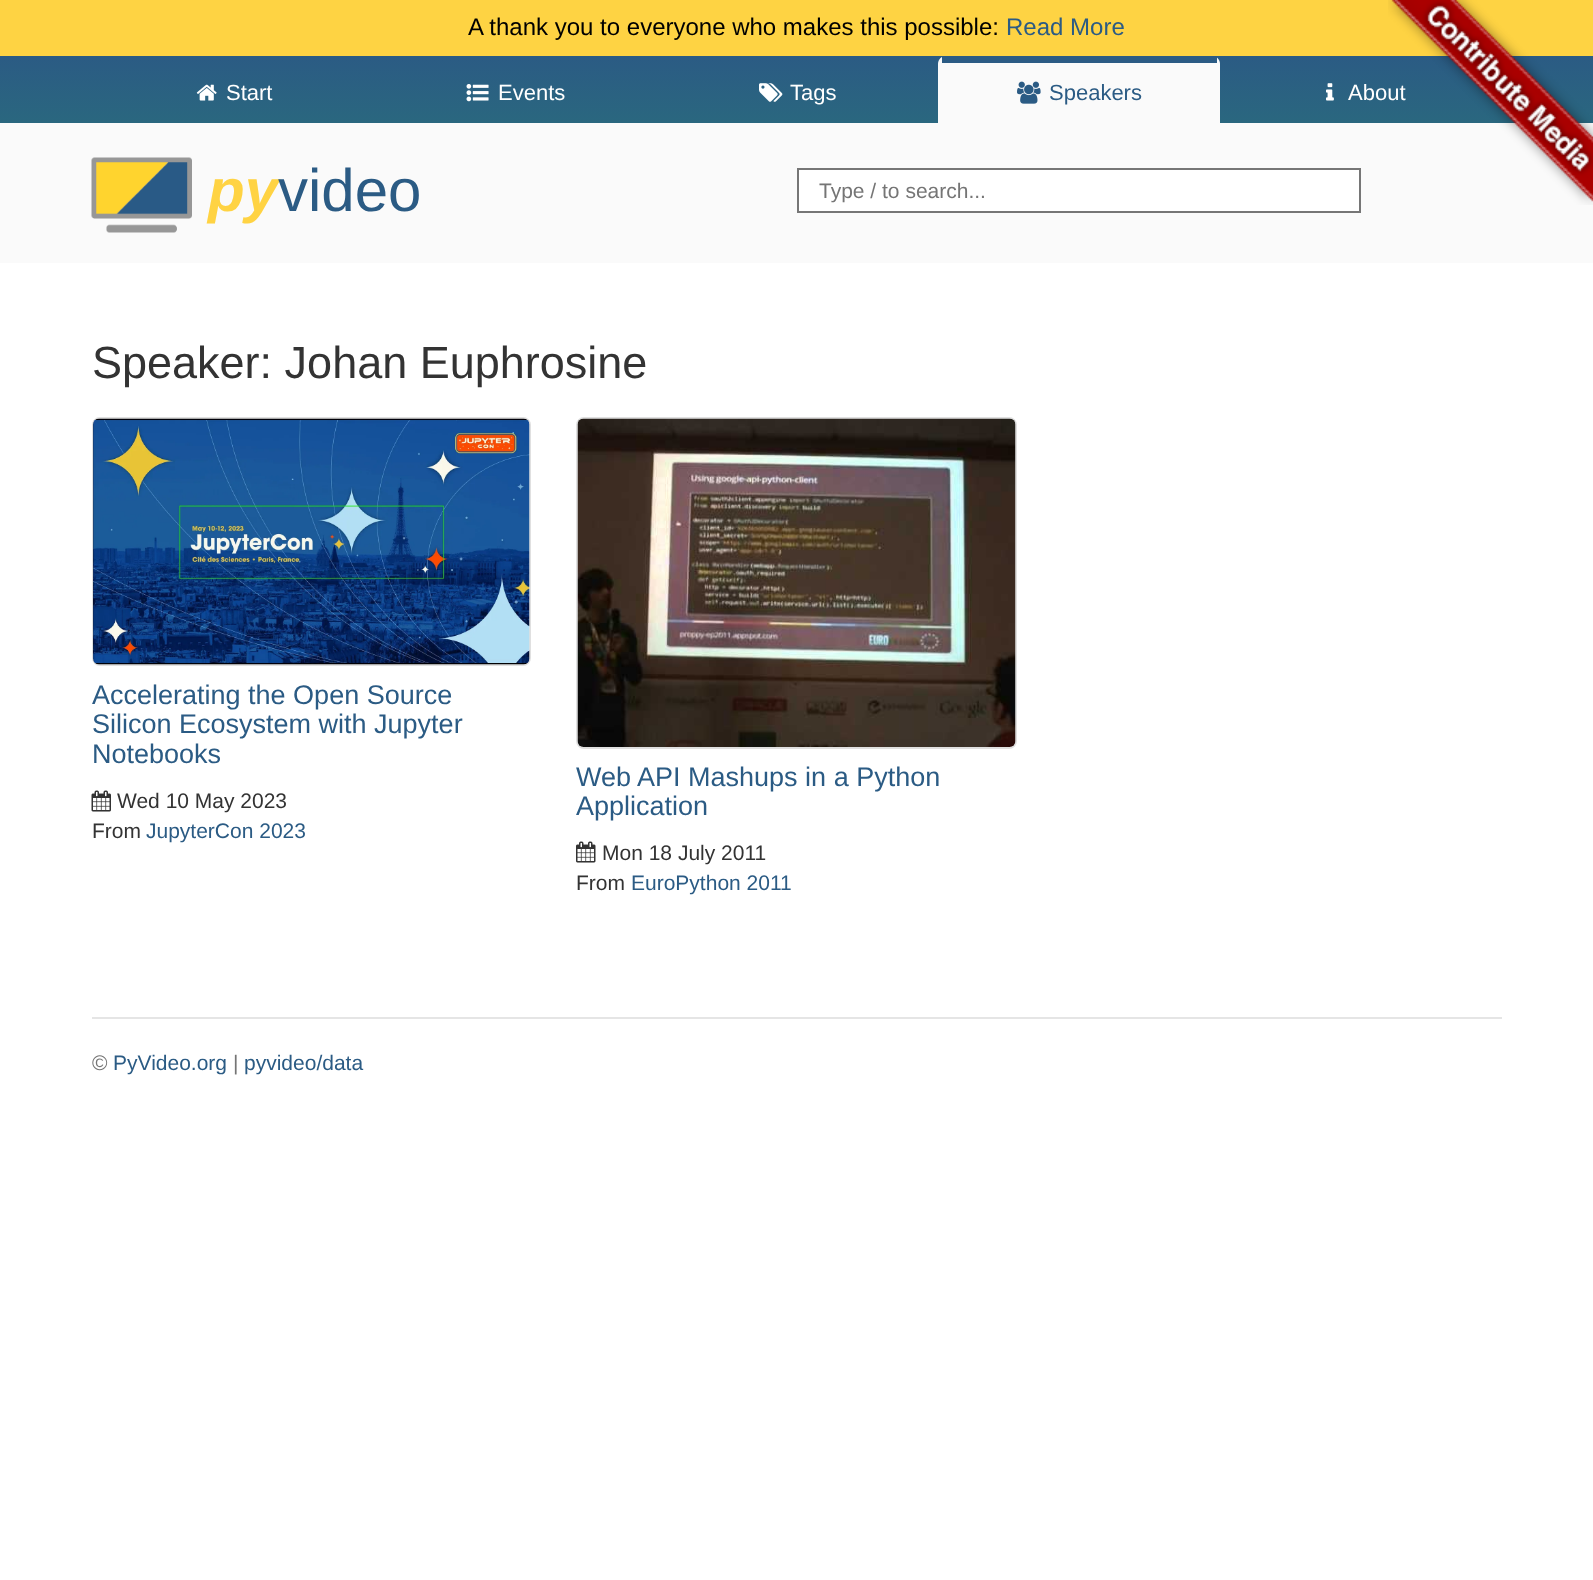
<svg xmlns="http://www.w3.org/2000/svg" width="1593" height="1580">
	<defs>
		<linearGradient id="g1" gradientUnits="userSpaceOnUse" x1="797" y1="55" x2="797" y2="123"><stop offset="0" stop-color="#2B5B84" /><stop offset="1" stop-color="#2A677F" /></linearGradient>
	</defs>
	<rect width="100%" height="100%" fill="#FFFFFF" />
	<rect x="0" y="0" width="1593" height="56" fill="#FED343" />
	<text x="468" y="35" font-family="Liberation Sans" font-size="24" fill="#000000">A thank you to everyone who makes this possible:</text>
	<text x="1006" y="35" font-family="Liberation Sans" font-size="24" fill="#2B5B84">Read More</text>
	<rect x="0" y="123" width="1593" height="140" fill="#FAFAFA" />
	<rect x="0" y="56" width="1593" height="67" fill="url(#g1)" />
	<text x="1348" y="100" font-family="Liberation Sans" font-size="22" fill="#FFFFFF">About</text>
	<image x="1388" y="0" width="205" height="205" href="assets/img1.png" />
	<image x="196" y="84" width="21" height="17" href="assets/img2.png" />
	<text x="226" y="100" font-family="Liberation Sans" font-size="22" fill="#FFFFFF">Start</text>
	<image x="466" y="84" width="23" height="18" href="assets/img3.png" />
	<text x="498" y="100" font-family="Liberation Sans" font-size="22" fill="#FFFFFF">Events</text>
	<image x="759" y="83" width="24" height="19" href="assets/img4.png" />
	<text x="790" y="100" font-family="Liberation Sans" font-size="22" fill="#FFFFFF">Tags</text>
	<path d="M946 56H1212C1216.5 56 1220 59.5 1220 64V123H938V64C938 59.5 941.5 56 946 56Z" fill="#FAFAFA" />
	<rect x="942" y="56" width="275" height="7" fill="#2B5B84" />
	<image x="1017" y="81" width="24" height="23" href="assets/img5.png" />
	<text x="1049" y="100" font-family="Liberation Sans" font-size="22" fill="#2B5B84">Speakers</text>
	<image x="1326" y="83" width="8" height="18" href="assets/img6.png" />
	<image x="91" y="157" width="101" height="76" href="assets/img7.png" />
	<text x="208" y="211" font-family="Liberation Sans" font-size="60" font-weight="700" font-style="italic" fill="#FFD343">py</text>
	<text x="278" y="211" font-family="Liberation Sans" font-size="60" fill="#2B5B84">video</text>
	<rect x="798" y="169" width="562" height="43" fill="#FFFFFF" stroke="#767676" stroke-width="2" />
	<text x="819" y="198" font-family="Liberation Sans" font-size="21" fill="#757575">Type / to search...</text>
	<text x="92" y="378" font-family="Liberation Sans" font-size="45" fill="#333333">Speaker: Johan Euphrosine</text>
	<rect x="93" y="418" width="437" height="247" rx="7" fill="none" stroke="#E0E0E0" stroke-width="2" />
	<image x="93" y="418" width="437" height="247" href="assets/img8.png" />
	<g font-family="Liberation Sans" font-size="27" fill="#2B5B84">
		<text x="92" y="704">Accelerating the Open Source</text>
		<text x="92" y="733">Silicon Ecosystem with Jupyter</text>
		<text x="92" y="763">Notebooks</text>
	</g>
	<image x="91" y="790" width="20" height="22" href="assets/img9.png" />
	<g font-family="Liberation Sans" font-size="21" fill="#333333">
		<text x="117" y="808">Wed 10 May 2023</text>
		<text x="92" y="838">From</text>
	</g>
	<text x="146" y="838" font-family="Liberation Sans" font-size="21" fill="#2B5B84">JupyterCon 2023</text>
	<rect x="577" y="418" width="439" height="330" rx="7" fill="none" stroke="#E0E0E0" stroke-width="2" />
	<image x="577" y="418" width="439" height="329" href="assets/img10.png" />
	<g font-family="Liberation Sans" font-size="27" fill="#2B5B84">
		<text x="576" y="786">Web API Mashups in a Python</text>
		<text x="576" y="815">Application</text>
	</g>
	<image x="576" y="841" width="20" height="22" href="assets/img11.png" />
	<g font-family="Liberation Sans" font-size="21" fill="#333333">
		<text x="602" y="860">Mon 18 July 2011</text>
		<text x="576" y="890">From</text>
	</g>
	<text x="631" y="890" font-family="Liberation Sans" font-size="21" fill="#2B5B84">EuroPython 2011</text>
	<rect x="92" y="1017" width="1410" height="2" fill="#E5E5E5" />
	<text x="92" y="1070" font-family="Liberation Sans" font-size="21" fill="#757575">©</text>
	<text x="113" y="1070" font-family="Liberation Sans" font-size="21" fill="#2B5B84">PyVideo.org</text>
	<text x="233" y="1070" font-family="Liberation Sans" font-size="21" fill="#757575">|</text>
	<text x="244" y="1070" font-family="Liberation Sans" font-size="21" fill="#2B5B84">pyvideo/data</text>
</svg>
